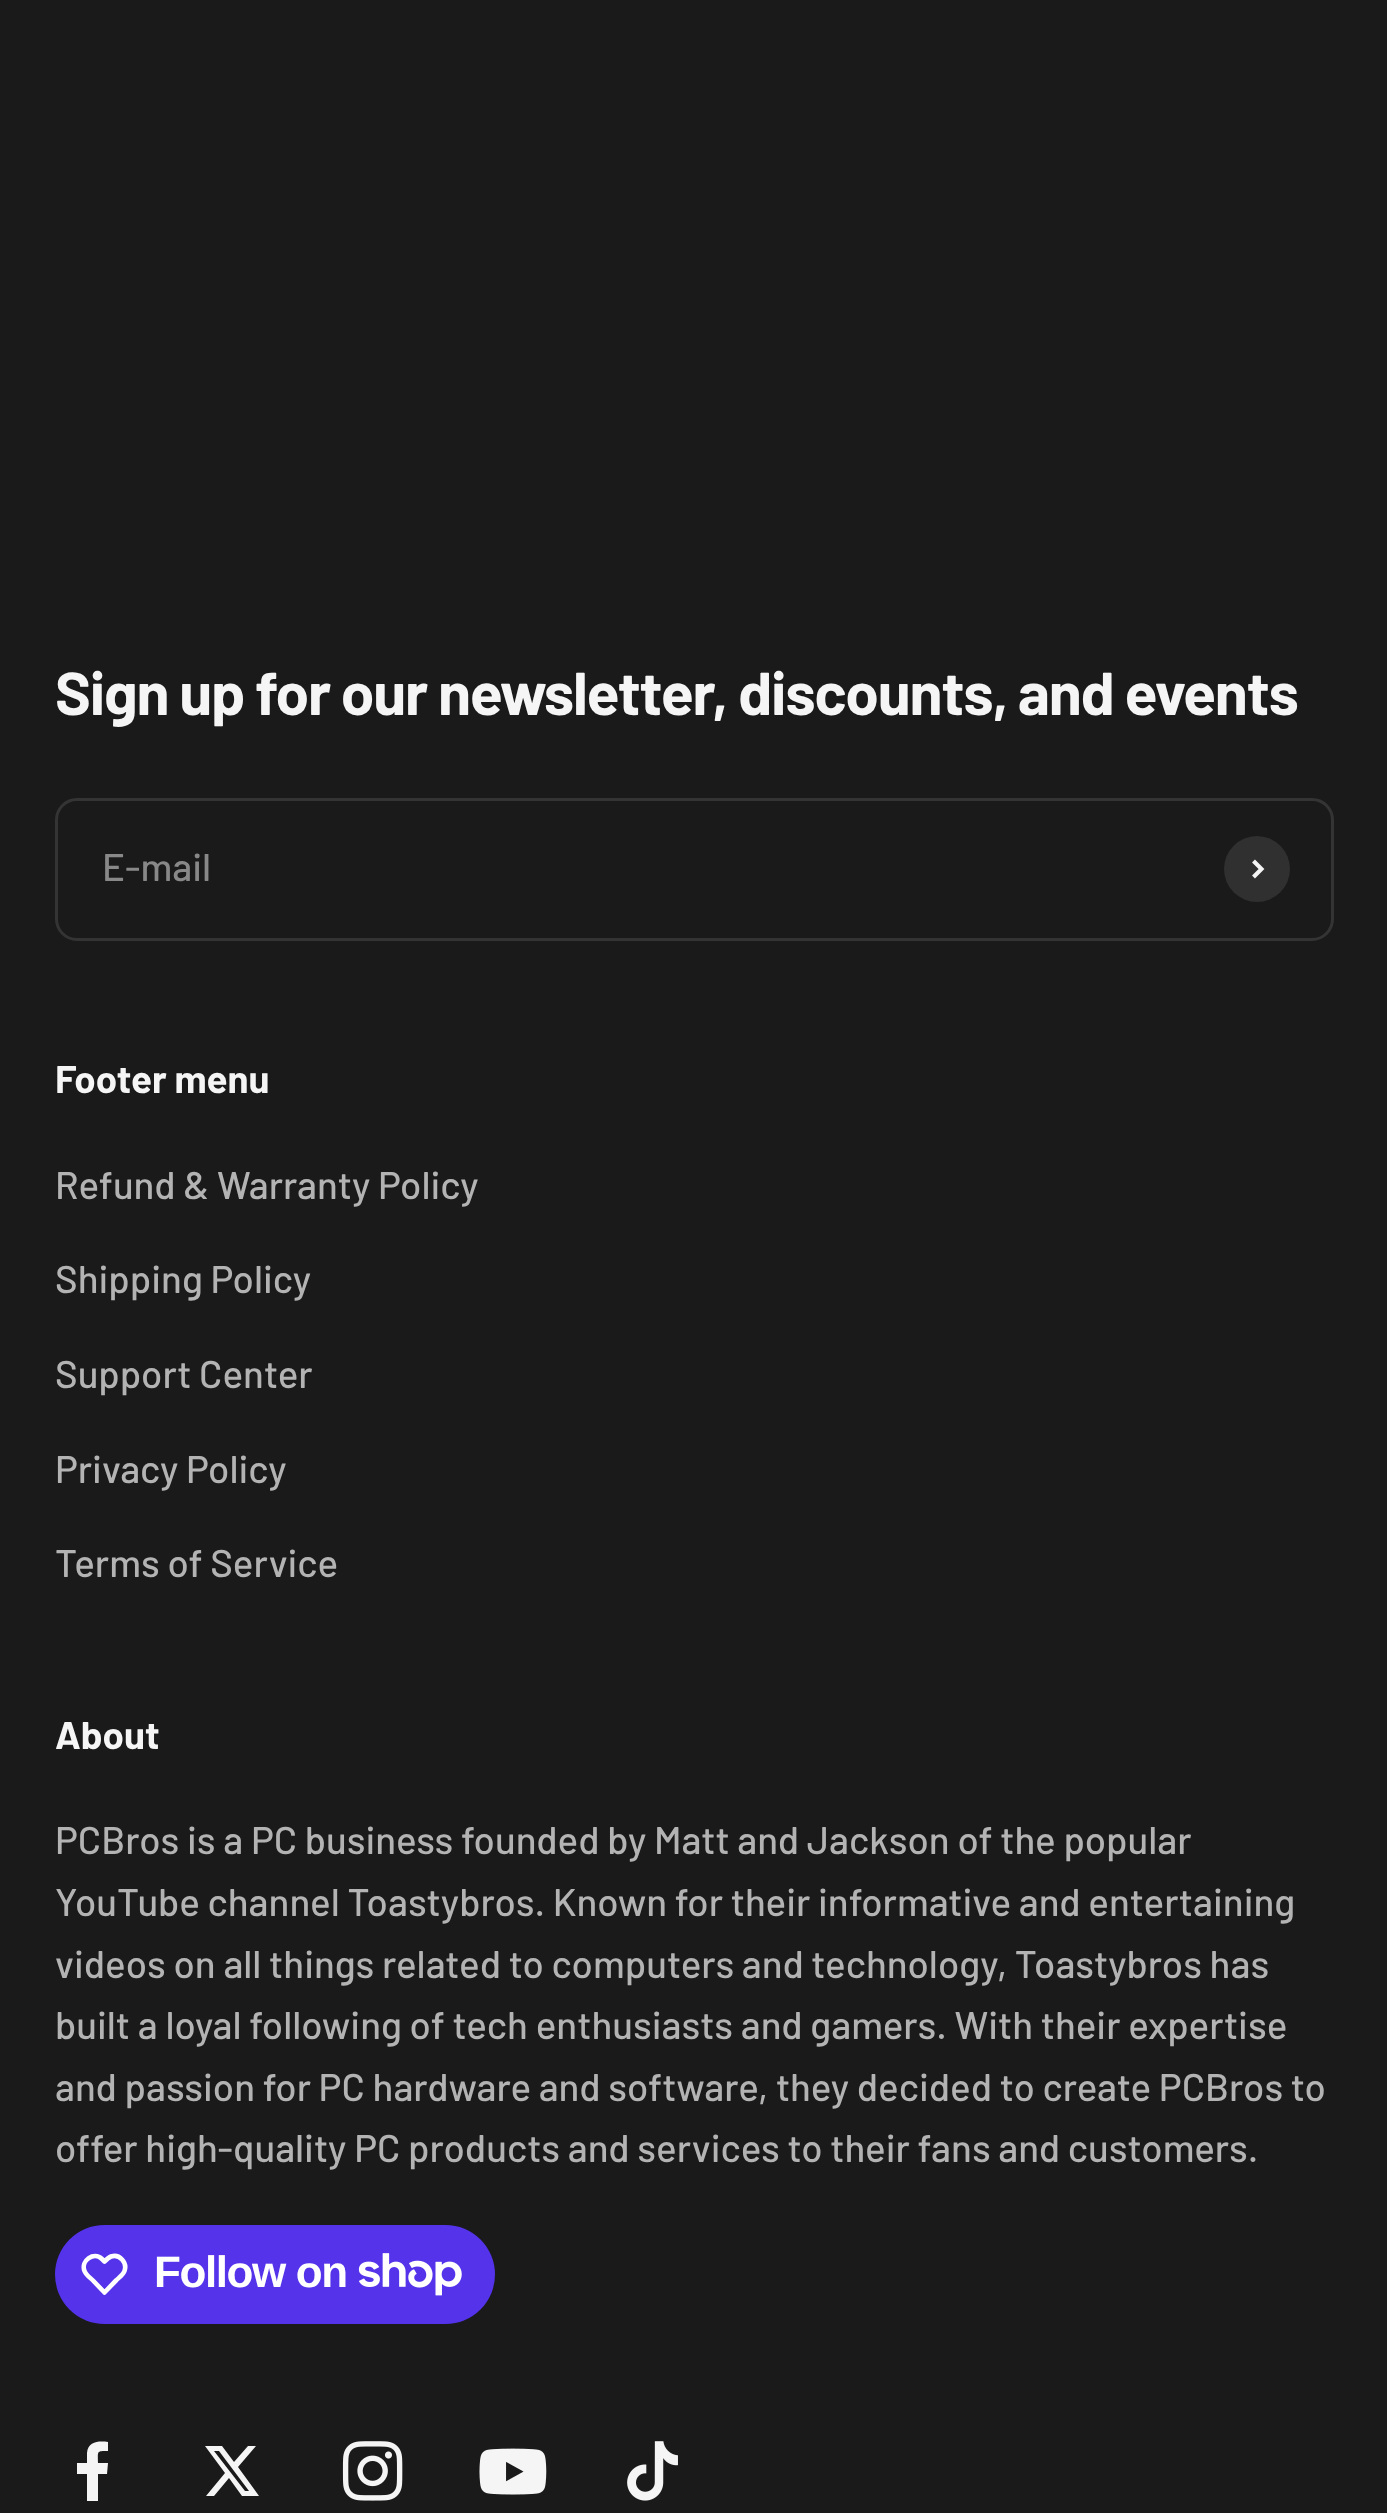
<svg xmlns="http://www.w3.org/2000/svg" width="1387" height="2513">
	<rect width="100%" height="100%" fill="#1A1A1A" />
	<text x="55" y="715" font-family="Barlow" font-size="60.5" font-weight="700" letter-spacing="-1.2" fill="#F5F5F5">Sign up for our newsletter, discounts, and events</text>
	<rect x="56.5" y="799.5" width="1276" height="140" rx="20.5" fill="none" stroke="#343434" stroke-width="3" />
	<text x="102" y="881" font-family="Barlow" font-size="38.5" font-weight="500" fill="#888888">E-mail</text>
	<circle cx="1257" cy="869" r="33" fill="#303030" />
	<path d="M1253.5 877L1261.5 869L1253.5 861" fill="none" stroke="#F5F5F5" stroke-width="4.1" />
	<text x="55" y="1093" font-family="Barlow" font-size="38.5" font-weight="700" fill="#F5F5F5">Footer menu</text>
	<g font-family="Barlow" font-size="38.5" font-weight="500" fill="#B3B3B3">
		<text x="55" y="1199">Refund &amp; Warranty Policy</text>
		<text x="55" y="1293">Shipping Policy</text>
		<text x="55" y="1388">Support Center</text>
		<text x="55" y="1483">Privacy Policy</text>
		<text x="55" y="1577">Terms of Service</text>
	</g>
	<text x="55" y="1749" font-family="Barlow" font-size="38.5" font-weight="700" fill="#F5F5F5">About</text>
	<g font-family="Barlow" font-size="38.5" font-weight="500" fill="#B3B3B3">
		<text x="55" y="1854">PCBros is a PC business founded by Matt and Jackson of the popular</text>
		<text x="55" y="1916">YouTube channel Toastybros. Known for their informative and entertaining</text>
		<text x="55" y="1978">videos on all things related to computers and technology, Toastybros has</text>
		<text x="55" y="2039">built a loyal following of tech enthusiasts and gamers. With their expertise</text>
		<text x="55" y="2101">and passion for PC hardware and software, they decided to create PCBros to</text>
		<text x="55" y="2162">offer high-quality PC products and services to their fans and customers.</text>
	</g>
	<rect x="55" y="2225" width="440" height="99" rx="49.5" fill="#5433EB" />
	<path d="M102 2259L104.5 2261.5C106.5 2259.5 108.5 2257.5 111 2256.5C119.5 2253.5 127.5 2262.5 124.5 2271C123 2275 119 2277.5 116 2280.5L104.5 2292.5L93 2280.5C90 2277.5 86 2275 84.5 2271C80.5 2260.5 94 2251 102 2259Z" fill="none" stroke="#FFFFFF" stroke-width="4.6" stroke-linejoin="round" />
	<text x="154" y="2287" font-family="Liberation Sans" font-size="44" font-weight="700" letter-spacing="-1.4" fill="#FFFFFF">Follow on</text>
	<image x="358" y="2253" width="104" height="43" href="assets/img1.png" />
	<path d="M87 2501V2474H77V2463H87V2453C88 2441 99 2441 108 2442V2451C96 2451 98 2451 98 2463H108L107 2474H98V2501Z" fill="#F5F5F5" fill-rule="evenodd" />
	<path d="M248 2446H256L238 2467L259 2496H242L229 2478L214 2496H206L225 2473L205 2446H222L234 2462ZM245 2491H249L219 2451H214Z" fill="#F5F5F5" />
	<image x="342" y="2441" width="61" height="60" href="assets/img2.png" />
	<image x="479" y="2448" width="68" height="47" href="assets/img3.png" />
	<image x="627" y="2441" width="51" height="60" href="assets/img4.png" />
</svg>
